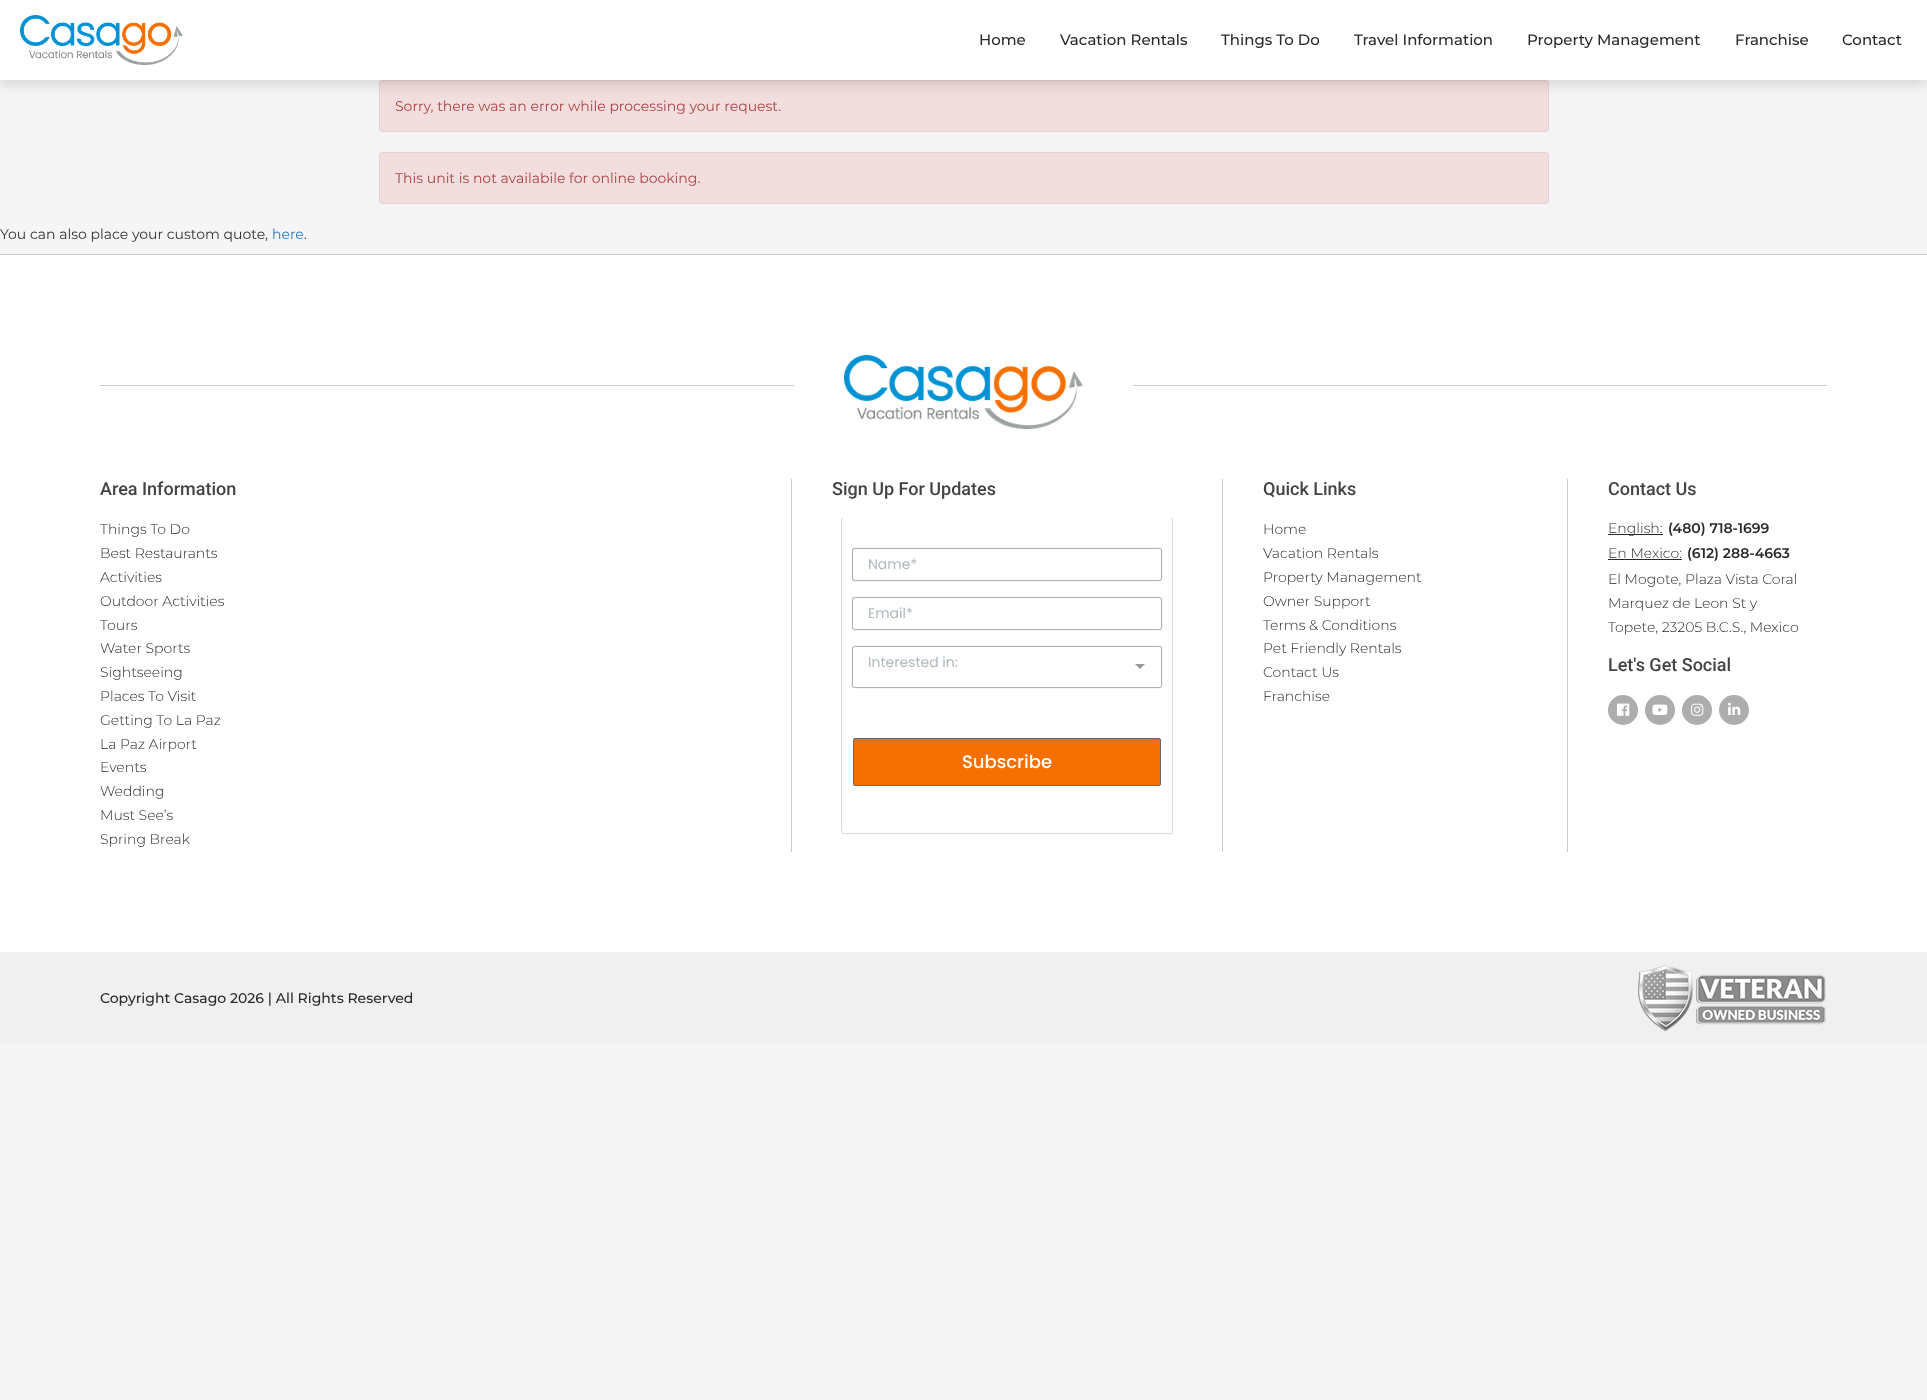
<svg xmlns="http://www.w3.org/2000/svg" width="1927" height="1400">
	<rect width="100%" height="100%" fill="#F5F5F5" />
	<rect x="379.5" y="80.5" width="1169" height="51" rx="3.5" fill="#F2DEDE" stroke="#EBCCD1" />
	<rect x="0" y="3" width="1927" height="80" fill="#000000" fill-opacity="0.16" filter="blur(7.5px)" />
	<rect x="0" y="0" width="1927" height="80" fill="#FFFFFF" />
	<image x="20" y="15" width="163" height="50" href="assets/img1.png" />
	<g font-family="Montserrat" font-size="15" font-weight="500" fill="#292929">
		<text x="979" y="45">Home</text>
		<text x="1060" y="45">Vacation Rentals</text>
		<text x="1221" y="45">Things To Do</text>
		<text x="1354" y="45">Travel Information</text>
		<text x="1527" y="45">Property Management</text>
		<text x="1735" y="45">Franchise</text>
		<text x="1842" y="45">Contact</text>
	</g>
	<text x="395" y="111" font-family="Montserrat" font-size="14" fill="#A94442">Sorry, there was an error while processing your request.</text>
	<rect x="379.5" y="152.5" width="1169" height="51" rx="3.5" fill="#F2DEDE" stroke="#EBCCD1" />
	<text x="395" y="183" font-family="Montserrat" font-size="14" fill="#A94442">This unit is not availabile for online booking.</text>
	<text x="0" y="239" font-family="Montserrat" font-size="14" fill="#333333">You can also place your custom quote,</text>
	<text x="272" y="239" font-family="Montserrat" font-size="14" fill="#337AB7">here</text>
	<text x="304" y="239" font-family="Montserrat" font-size="14" fill="#333333">.</text>
	<rect x="0" y="254" width="1927" height="1" fill="#CCCCCC" />
	<rect x="0" y="255" width="1927" height="697" fill="#FFFFFF" />
	<rect x="100" y="385" width="1727" height="1" fill="#CCCCCC" />
	<rect x="794" y="385" width="339" height="1" fill="#FFFFFF" />
	<image x="844" y="355" width="239" height="74" href="assets/img2.png" />
	<text x="100" y="495" font-family="Roboto" font-size="18" font-weight="500" fill="#434343">Area Information</text>
	<g font-family="Montserrat" font-size="14" font-weight="300" fill="#292929">
		<text x="100" y="534">Things To Do</text>
		<text x="100" y="558">Best Restaurants</text>
		<text x="100" y="582">Activities</text>
		<text x="100" y="606">Outdoor Activities</text>
		<text x="100" y="630">Tours</text>
		<text x="100" y="653">Water Sports</text>
		<text x="100" y="677">Sightseeing</text>
		<text x="100" y="701">Places To Visit</text>
		<text x="100" y="725">Getting To La Paz</text>
		<text x="100" y="749">La Paz Airport</text>
		<text x="100" y="772">Events</text>
		<text x="100" y="796">Wedding</text>
		<text x="100" y="820">Must See’s</text>
		<text x="100" y="844">Spring Break</text>
	</g>
	<rect x="1222" y="479" width="1" height="373" fill="#CCCCCC" />
	<rect x="791" y="479" width="1" height="373" fill="#CCCCCC" />
	<text x="832" y="495" font-family="Roboto" font-size="18" font-weight="500" fill="#434343">Sign Up For Updates</text>
	<image x="841" y="518" width="332" height="316" href="assets/img3.png" />
	<rect x="1567" y="479" width="1" height="373" fill="#CCCCCC" />
	<text x="1263" y="495" font-family="Roboto" font-size="18" font-weight="500" fill="#434343">Quick Links</text>
	<g font-family="Montserrat" font-size="14" font-weight="300" fill="#292929">
		<text x="1263" y="534">Home</text>
		<text x="1263" y="558">Vacation Rentals</text>
		<text x="1263" y="582">Property Management</text>
		<text x="1263" y="606">Owner Support</text>
		<text x="1263" y="630">Terms &amp; Conditions</text>
		<text x="1263" y="653">Pet Friendly Rentals</text>
		<text x="1263" y="677">Contact Us</text>
		<text x="1263" y="701">Franchise</text>
	</g>
	<text x="1608" y="495" font-family="Roboto" font-size="18" font-weight="500" fill="#434343">Contact Us</text>
	<rect x="1608" y="534" width="55" height="1" fill="#292929" />
	<text x="1608" y="533" font-family="Montserrat" font-size="14" font-weight="300" fill="#292929">English:</text>
	<text x="1668" y="533" font-family="Montserrat" font-size="14" font-weight="600" fill="#292929">(480) 718-1699</text>
	<text x="1608" y="558" font-family="Montserrat" font-size="14" font-weight="300" fill="#292929">En Mexico:</text>
	<rect x="1608" y="559" width="74" height="1" fill="#292929" />
	<text x="1687" y="558" font-family="Montserrat" font-size="14" font-weight="600" fill="#292929">(612) 288-4663</text>
	<g font-family="Montserrat" font-size="14" font-weight="300" fill="#292929">
		<text x="1608" y="584">El Mogote, Plaza Vista Coral</text>
		<text x="1608" y="608">Marquez de Leon St y</text>
		<text x="1608" y="632">Topete, 23205 B.C.S., Mexico</text>
	</g>
	<text x="1608" y="671" font-family="Roboto" font-size="18" font-weight="500" fill="#434343">Let's Get Social</text>
	<circle cx="1623" cy="710" r="15" fill="#ADADAD" />
	<image x="1617" y="703" width="13" height="13" href="assets/img4.png" />
	<circle cx="1660" cy="710" r="15" fill="#ADADAD" />
	<image x="1652" y="704" width="16" height="11" href="assets/img5.png" />
	<circle cx="1697" cy="710" r="15" fill="#ADADAD" />
	<image x="1691" y="703" width="13" height="13" href="assets/img6.png" />
	<circle cx="1734" cy="710" r="15" fill="#ADADAD" />
	<image x="1728" y="702" width="13" height="13" href="assets/img7.png" />
	<rect x="0" y="952" width="1927" height="92" fill="#F0F0F0" />
	<text x="100" y="1003" font-family="Montserrat" font-size="14" font-weight="500" fill="#292929">Copyright Casago 2026 | All Rights Reserved</text>
	<image x="1638" y="964" width="188" height="68" href="assets/img8.png" />
</svg>
